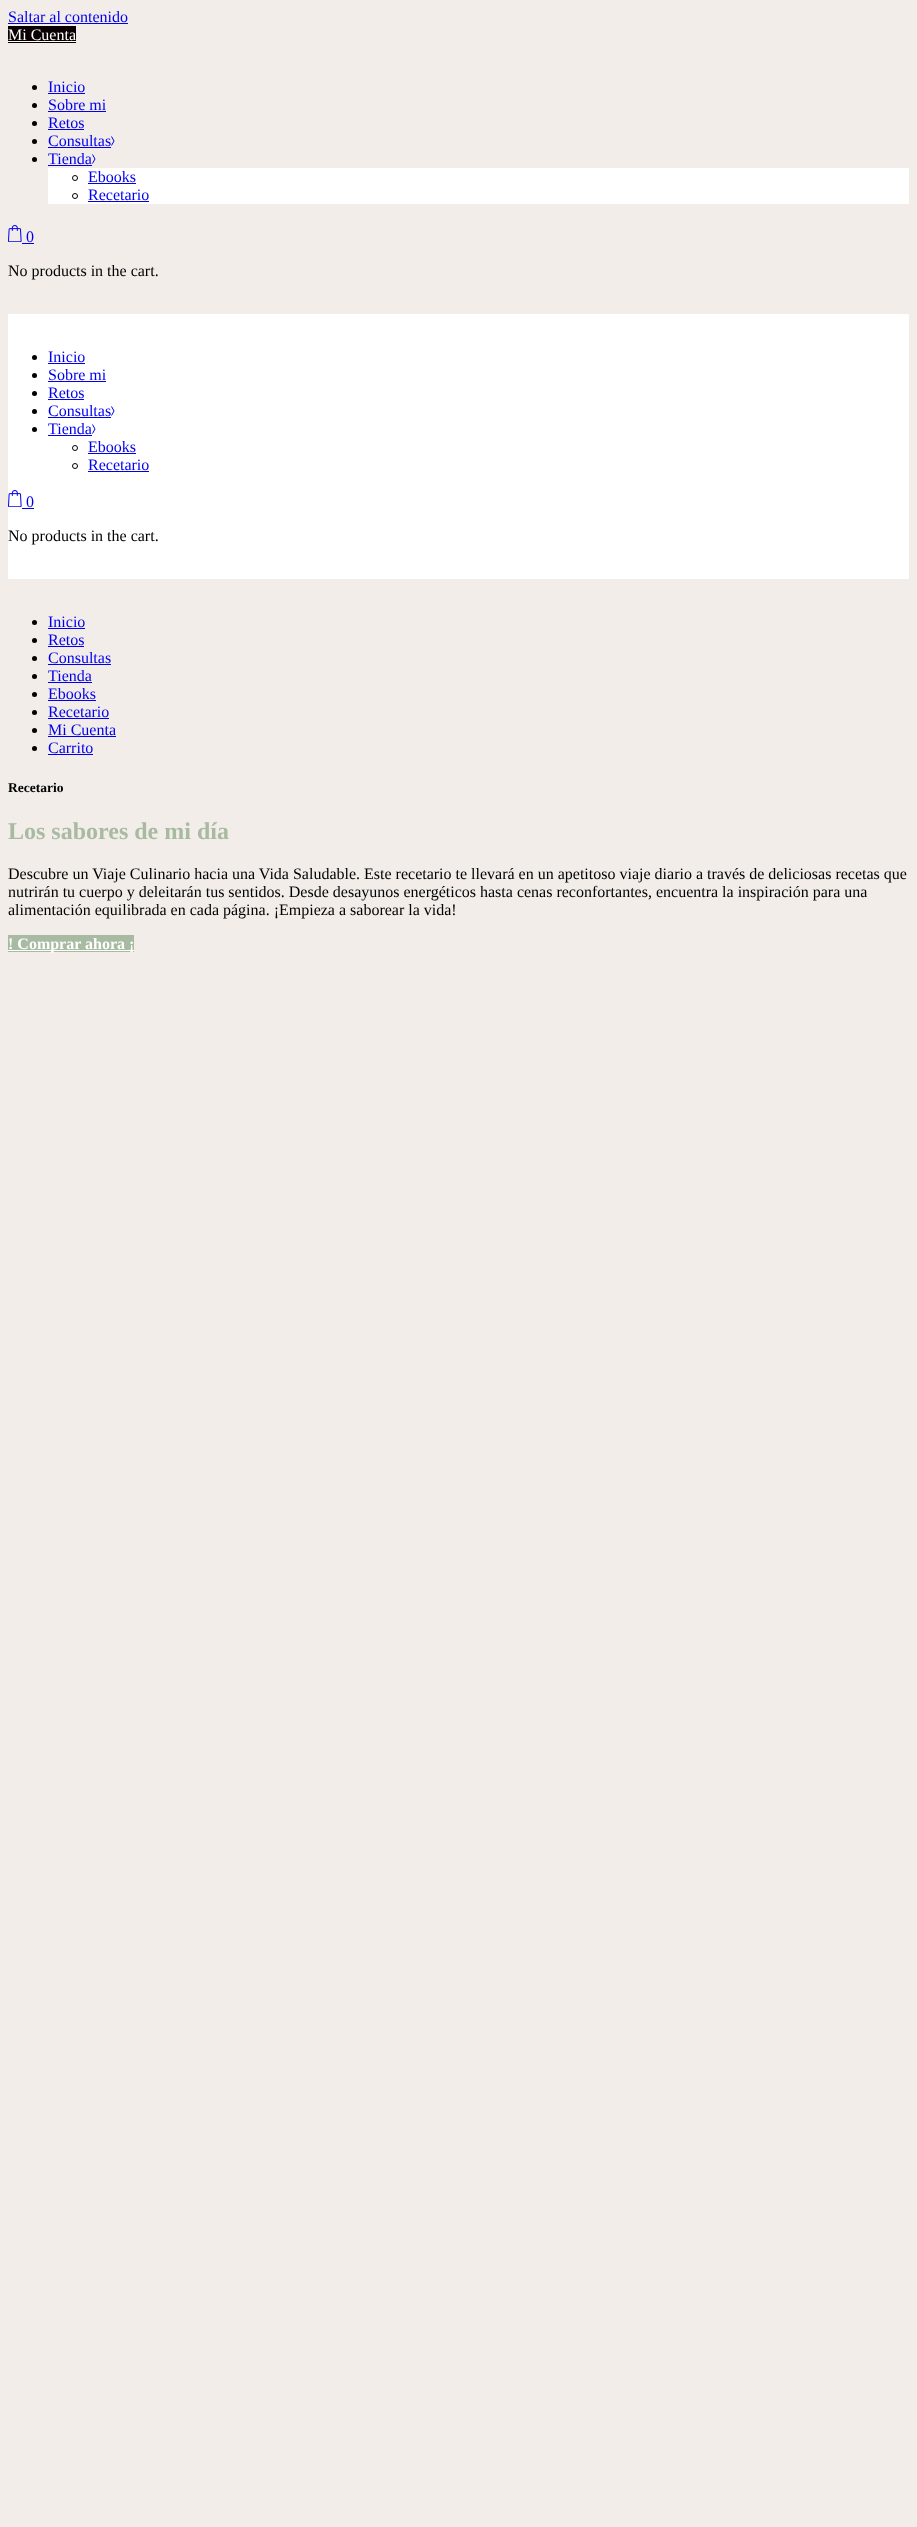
<svg xmlns="http://www.w3.org/2000/svg" width="917" height="2527">
	<rect width="100%" height="100%" fill="#F2EDE9" />
	<text x="8" y="22" font-family="Liberation Serif" font-size="16" fill="#0000EE">Saltar al contenido</text>
	<rect x="8" y="23" width="120" height="1" fill="#0000EE" />
	<rect x="8" y="26" width="68" height="17" fill="#0A0000" />
	<text x="8" y="40" font-family="Liberation Serif" font-size="16" fill="#FFFFFF">Mi Cuenta</text>
	<rect x="8" y="41" width="68" height="1" fill="#FFFFFF" />
	<circle cx="34.5" cy="87.5" r="2.5" fill="#000000" />
	<text x="48" y="92" font-family="Liberation Serif" font-size="16" fill="#0000EE">Inicio</text>
	<rect x="48" y="93" width="37" height="1" fill="#0000EE" />
	<circle cx="34.5" cy="105.5" r="2.5" fill="#000000" />
	<text x="48" y="110" font-family="Liberation Serif" font-size="16" fill="#0000EE">Sobre mi</text>
	<rect x="48" y="111" width="58" height="1" fill="#0000EE" />
	<circle cx="34.5" cy="123.5" r="2.5" fill="#000000" />
	<text x="48" y="128" font-family="Liberation Serif" font-size="16" fill="#0000EE">Retos</text>
	<rect x="48" y="129" width="36" height="1" fill="#0000EE" />
	<circle cx="34.5" cy="141.5" r="2.5" fill="#000000" />
	<text x="48" y="146" font-family="Liberation Serif" font-size="16" fill="#0000EE">Consultas</text>
	<rect x="48" y="147" width="63" height="1" fill="#0000EE" />
	<path d="M111.5 136.5L114 141L111.5 145.5M92.5 154.5L95 159L92.5 163.5" fill="none" stroke="#0000EE" />
	<circle cx="34.5" cy="159.5" r="2.5" fill="#000000" />
	<text x="48" y="164" font-family="Liberation Serif" font-size="16" fill="#0000EE">Tienda</text>
	<rect x="48" y="165" width="44" height="1" fill="#0000EE" />
	<rect x="48" y="168" width="861" height="36" fill="#FFFFFF" />
	<circle cx="75" cy="178" r="2.5" fill="none" stroke="#000000" />
	<text x="88" y="182" font-family="Liberation Serif" font-size="16" fill="#0000EE">Ebooks</text>
	<rect x="88" y="183" width="48" height="1" fill="#0000EE" />
	<circle cx="75" cy="196" r="2.5" fill="none" stroke="#000000" />
	<text x="88" y="200" font-family="Liberation Serif" font-size="16" fill="#0000EE">Recetario</text>
	<rect x="88" y="201" width="61" height="1" fill="#0000EE" />
	<image x="8" y="225" width="14" height="17" href="assets/img1.png" />
	<text x="26" y="242" font-family="Liberation Serif" font-size="16" fill="#0000EE">0</text>
	<rect x="22" y="243" width="12" height="1" fill="#0000EE" />
	<text x="8" y="276" font-family="Liberation Serif" font-size="16" fill="#000000">No products in the cart.</text>
	<rect x="8" y="314" width="901" height="265" fill="#FFFFFF" />
	<circle cx="34.5" cy="357.5" r="2.5" fill="#000000" />
	<text x="48" y="362" font-family="Liberation Serif" font-size="16" fill="#0000EE">Inicio</text>
	<rect x="48" y="363" width="37" height="1" fill="#0000EE" />
	<circle cx="34.5" cy="375.5" r="2.5" fill="#000000" />
	<text x="48" y="380" font-family="Liberation Serif" font-size="16" fill="#0000EE">Sobre mi</text>
	<rect x="48" y="381" width="58" height="1" fill="#0000EE" />
	<circle cx="34.5" cy="393.5" r="2.5" fill="#000000" />
	<text x="48" y="398" font-family="Liberation Serif" font-size="16" fill="#0000EE">Retos</text>
	<rect x="48" y="399" width="36" height="1" fill="#0000EE" />
	<circle cx="34.5" cy="411.5" r="2.5" fill="#000000" />
	<text x="48" y="416" font-family="Liberation Serif" font-size="16" fill="#0000EE">Consultas</text>
	<rect x="48" y="417" width="63" height="1" fill="#0000EE" />
	<path d="M111.5 406.5L114 411L111.5 415.5M92.5 424.5L95 429L92.5 433.5" fill="none" stroke="#0000EE" />
	<circle cx="34.5" cy="429.5" r="2.5" fill="#000000" />
	<text x="48" y="434" font-family="Liberation Serif" font-size="16" fill="#0000EE">Tienda</text>
	<rect x="48" y="435" width="44" height="1" fill="#0000EE" />
	<circle cx="75" cy="448" r="2.5" fill="none" stroke="#000000" />
	<text x="88" y="452" font-family="Liberation Serif" font-size="16" fill="#0000EE">Ebooks</text>
	<rect x="88" y="453" width="48" height="1" fill="#0000EE" />
	<circle cx="75" cy="466" r="2.5" fill="none" stroke="#000000" />
	<text x="88" y="470" font-family="Liberation Serif" font-size="16" fill="#0000EE">Recetario</text>
	<rect x="88" y="471" width="61" height="1" fill="#0000EE" />
	<image x="8" y="490" width="14" height="17" href="assets/img2.png" />
	<text x="26" y="507" font-family="Liberation Serif" font-size="16" fill="#0000EE">0</text>
	<rect x="22" y="508" width="12" height="1" fill="#0000EE" />
	<text x="8" y="541" font-family="Liberation Serif" font-size="16" fill="#000000">No products in the cart.</text>
	<circle cx="34.5" cy="622.5" r="2.5" fill="#000000" />
	<text x="48" y="627" font-family="Liberation Serif" font-size="16" fill="#0000EE">Inicio</text>
	<rect x="48" y="628" width="37" height="1" fill="#0000EE" />
	<circle cx="34.5" cy="640.5" r="2.5" fill="#000000" />
	<text x="48" y="645" font-family="Liberation Serif" font-size="16" fill="#0000EE">Retos</text>
	<rect x="48" y="646" width="36" height="1" fill="#0000EE" />
	<circle cx="34.5" cy="658.5" r="2.5" fill="#000000" />
	<text x="48" y="663" font-family="Liberation Serif" font-size="16" fill="#0000EE">Consultas</text>
	<rect x="48" y="664" width="63" height="1" fill="#0000EE" />
	<circle cx="34.5" cy="676.5" r="2.5" fill="#000000" />
	<text x="48" y="681" font-family="Liberation Serif" font-size="16" fill="#0000EE">Tienda</text>
	<rect x="48" y="682" width="44" height="1" fill="#0000EE" />
	<circle cx="34.5" cy="694.5" r="2.5" fill="#000000" />
	<text x="48" y="699" font-family="Liberation Serif" font-size="16" fill="#0000EE">Ebooks</text>
	<rect x="48" y="700" width="48" height="1" fill="#0000EE" />
	<circle cx="34.5" cy="712.5" r="2.5" fill="#000000" />
	<text x="48" y="717" font-family="Liberation Serif" font-size="16" fill="#0000EE">Recetario</text>
	<rect x="48" y="718" width="61" height="1" fill="#0000EE" />
	<circle cx="34.5" cy="730.5" r="2.5" fill="#000000" />
	<text x="48" y="735" font-family="Liberation Serif" font-size="16" fill="#0000EE">Mi Cuenta</text>
	<rect x="48" y="736" width="68" height="1" fill="#0000EE" />
	<circle cx="34.5" cy="748.5" r="2.5" fill="#000000" />
	<text x="48" y="753" font-family="Liberation Serif" font-size="16" fill="#0000EE">Carrito</text>
	<rect x="48" y="754" width="45" height="1" fill="#0000EE" />
	<text x="8" y="792" font-family="Liberation Serif" font-size="13.5" font-weight="700" fill="#000000">Recetario</text>
	<text x="8" y="839" font-family="Liberation Serif" font-size="24" font-weight="700" fill="#A8BBA2">Los sabores de mi día</text>
	<g font-family="Liberation Serif" font-size="16" fill="#000000">
		<text x="8" y="879">Descubre un Viaje Culinario hacia una Vida Saludable. Este recetario te llevará en un apetitoso viaje diario a través de deliciosas recetas que</text>
		<text x="8" y="897">nutrirán tu cuerpo y deleitarán tus sentidos. Desde desayunos energéticos hasta cenas reconfortantes, encuentra la inspiración para una</text>
		<text x="8" y="915">alimentación equilibrada en cada página. ¡Empieza a saborear la vida!</text>
	</g>
	<rect x="8" y="935" width="126" height="17" fill="#A8BBA2" />
	<rect x="8" y="950" width="126" height="1" fill="#FFFFFF" />
	<text x="8" y="949" font-family="Liberation Serif" font-size="16" font-weight="700" fill="#FFFFFF">! Comprar ahora ¡</text>
</svg>
